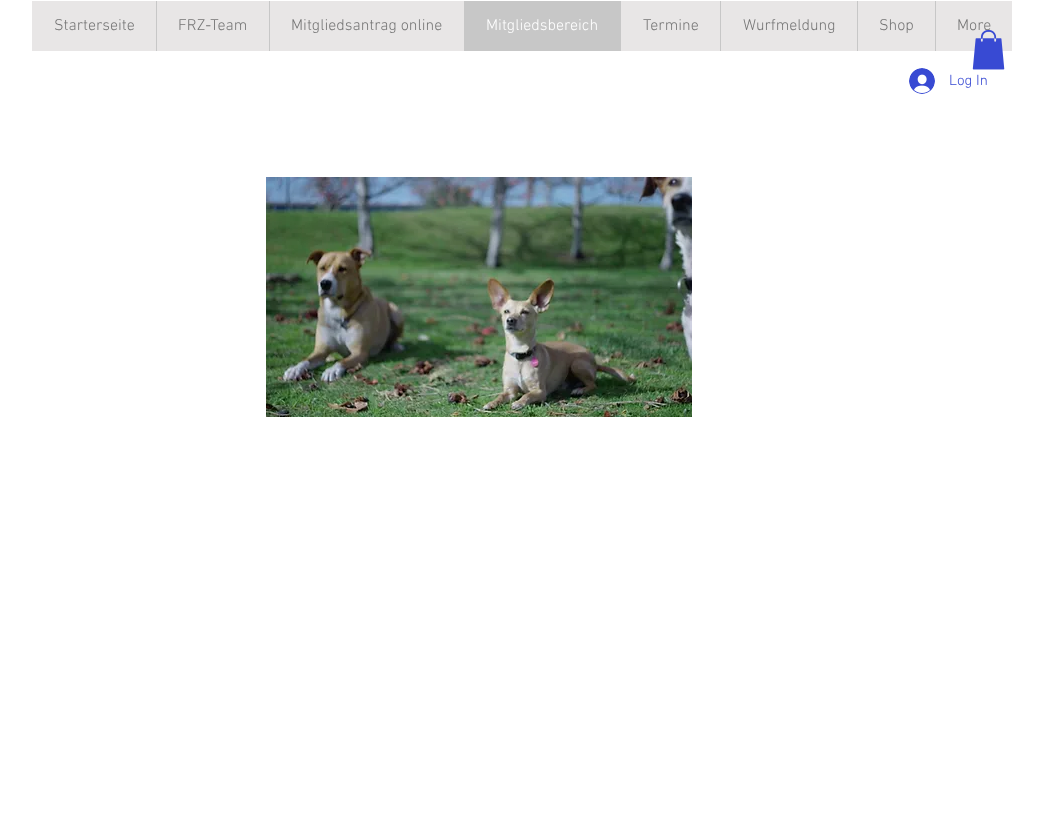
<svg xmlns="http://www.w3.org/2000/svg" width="1044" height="840">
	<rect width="100%" height="100%" fill="#FFFFFF" />
	<rect x="32" y="1" width="980" height="50" fill="#E8E6E6" />
	<text x="54" y="30" font-family="'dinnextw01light'" font-size="16" font-weight="300" fill="#767676">Starterseite</text>
	<rect x="156" y="1" width="1" height="50" fill="#C7C7C7" />
	<text x="178" y="30" font-family="'dinnextw01light'" font-size="16" font-weight="300" fill="#767676">FRZ-Team</text>
	<rect x="269" y="1" width="1" height="50" fill="#C7C7C7" />
	<text x="291" y="30" font-family="'dinnextw01light'" font-size="16" font-weight="300" fill="#767676">Mitgliedsantrag online</text>
	<rect x="464" y="1" width="157" height="50" fill="#C7C7C7" />
	<text x="486" y="30" font-family="'dinnextw01light'" font-size="16" font-weight="300" fill="#FFFFFF">Mitgliedsbereich</text>
	<text x="643" y="30" font-family="'dinnextw01light'" font-size="16" font-weight="300" fill="#767676">Termine</text>
	<rect x="720" y="1" width="1" height="50" fill="#C7C7C7" />
	<text x="743" y="30" font-family="'dinnextw01light'" font-size="16" font-weight="300" fill="#767676">Wurfmeldung</text>
	<rect x="857" y="1" width="1" height="50" fill="#C7C7C7" />
	<text x="879" y="30" font-family="'dinnextw01light'" font-size="16" font-weight="300" fill="#767676">Shop</text>
	<rect x="935" y="1" width="1" height="50" fill="#C7C7C7" />
	<text x="957" y="30" font-family="'dinnextw01light'" font-size="16" font-weight="300" fill="#767676">More</text>
	<image x="972" y="30" width="33" height="40" href="assets/img1.png" />
	<image x="909" y="68" width="26" height="26" href="assets/img2.png" />
	<text x="949" y="85" font-family="'dinnextw01light'" font-size="15" font-weight="300" fill="#384AD3">Log In</text>
	<image x="266" y="177" width="426" height="240" href="assets/img3.png" />
</svg>
